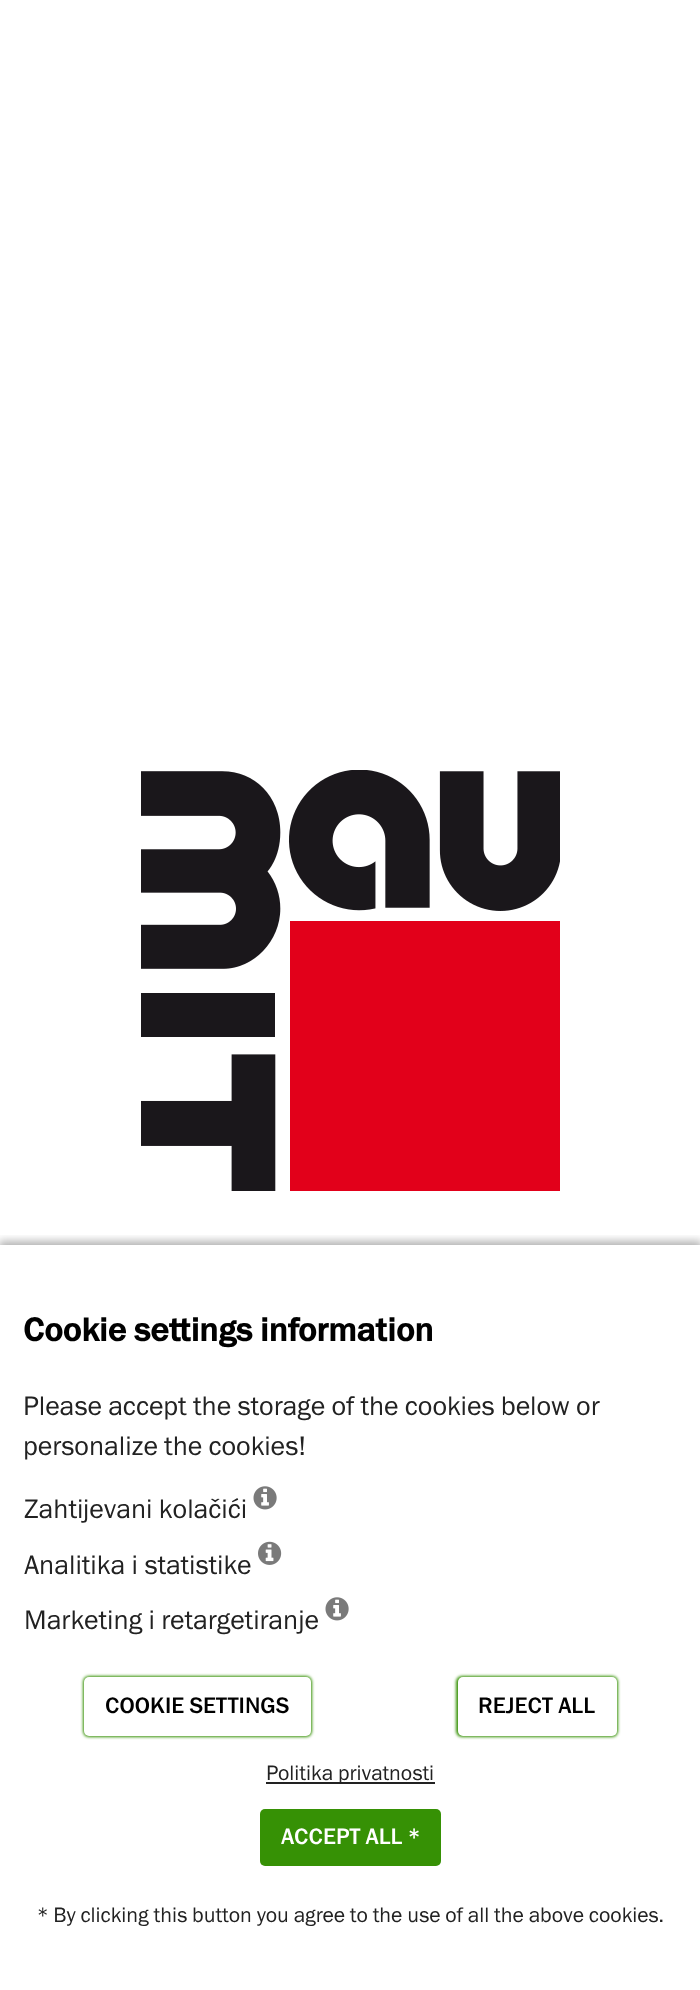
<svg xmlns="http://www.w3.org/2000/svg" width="700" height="1990">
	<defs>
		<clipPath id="clip1"><rect x="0" y="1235" width="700" height="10" /></clipPath>
	</defs>
	<rect width="100%" height="100%" fill="#FFFFFF" />
	<image x="141" y="770" width="419" height="421" href="assets/img1.png" />
	<g clip-path="url(#clip1)">
		<rect x="-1" y="1241" width="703" height="748" fill="#000000" fill-opacity="0.3" filter="blur(4px)" />
	</g>
	<text x="23" y="1341" font-family="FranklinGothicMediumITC" font-size="33" font-weight="700" fill="#000000">Cookie settings information</text>
	<g font-family="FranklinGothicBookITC" font-size="27" fill="#222222">
		<text x="23" y="1415">Please accept the storage of the cookies below or</text>
		<text x="23" y="1455">personalize the cookies!</text>
		<text x="24" y="1518">Zahtijevani kolačići</text>
	</g>
	<image x="253" y="1486" width="24" height="24" href="assets/img2.png" />
	<text x="24" y="1574" font-family="FranklinGothicBookITC" font-size="27" fill="#222222">Analitika i statistike</text>
	<image x="258" y="1541" width="24" height="24" href="assets/img3.png" />
	<text x="24" y="1629" font-family="FranklinGothicBookITC" font-size="27" fill="#222222">Marketing i retargetiranje</text>
	<image x="325" y="1597" width="24" height="24" href="assets/img2.png" />
	<rect x="83" y="1676" width="229" height="61" rx="6" fill="#369105" filter="blur(1.5px)" />
	<rect x="84" y="1677" width="227" height="59" rx="5" fill="#FFFFFF" />
	<text x="105" y="1713" font-family="FranklinGothicMediumITC" font-size="22.5" font-weight="500" fill="#000000">COOKIE SETTINGS</text>
	<rect x="456" y="1676" width="162" height="61" rx="6" fill="#369105" filter="blur(1.5px)" />
	<rect x="458" y="1677" width="159" height="59" rx="5" fill="#FFFFFF" />
	<text x="478" y="1713" font-family="FranklinGothicMediumITC" font-size="22.5" font-weight="500" fill="#000000">REJECT ALL</text>
	<rect x="266" y="1782" width="169" height="2" fill="#222222" />
	<text x="266" y="1780" font-family="FranklinGothicBookITC" font-size="21" fill="#222222">Politika privatnosti</text>
	<rect x="260" y="1809" width="181" height="57" rx="5" fill="#369105" />
	<text x="281" y="1844" font-family="FranklinGothicMediumITC" font-size="22.5" font-weight="500" fill="#FFFFFF">ACCEPT ALL *</text>
	<text x="37" y="1922" font-family="FranklinGothicBookITC" font-size="21" fill="#222222">* By clicking this button you agree to the use of all the above cookies.</text>
</svg>
